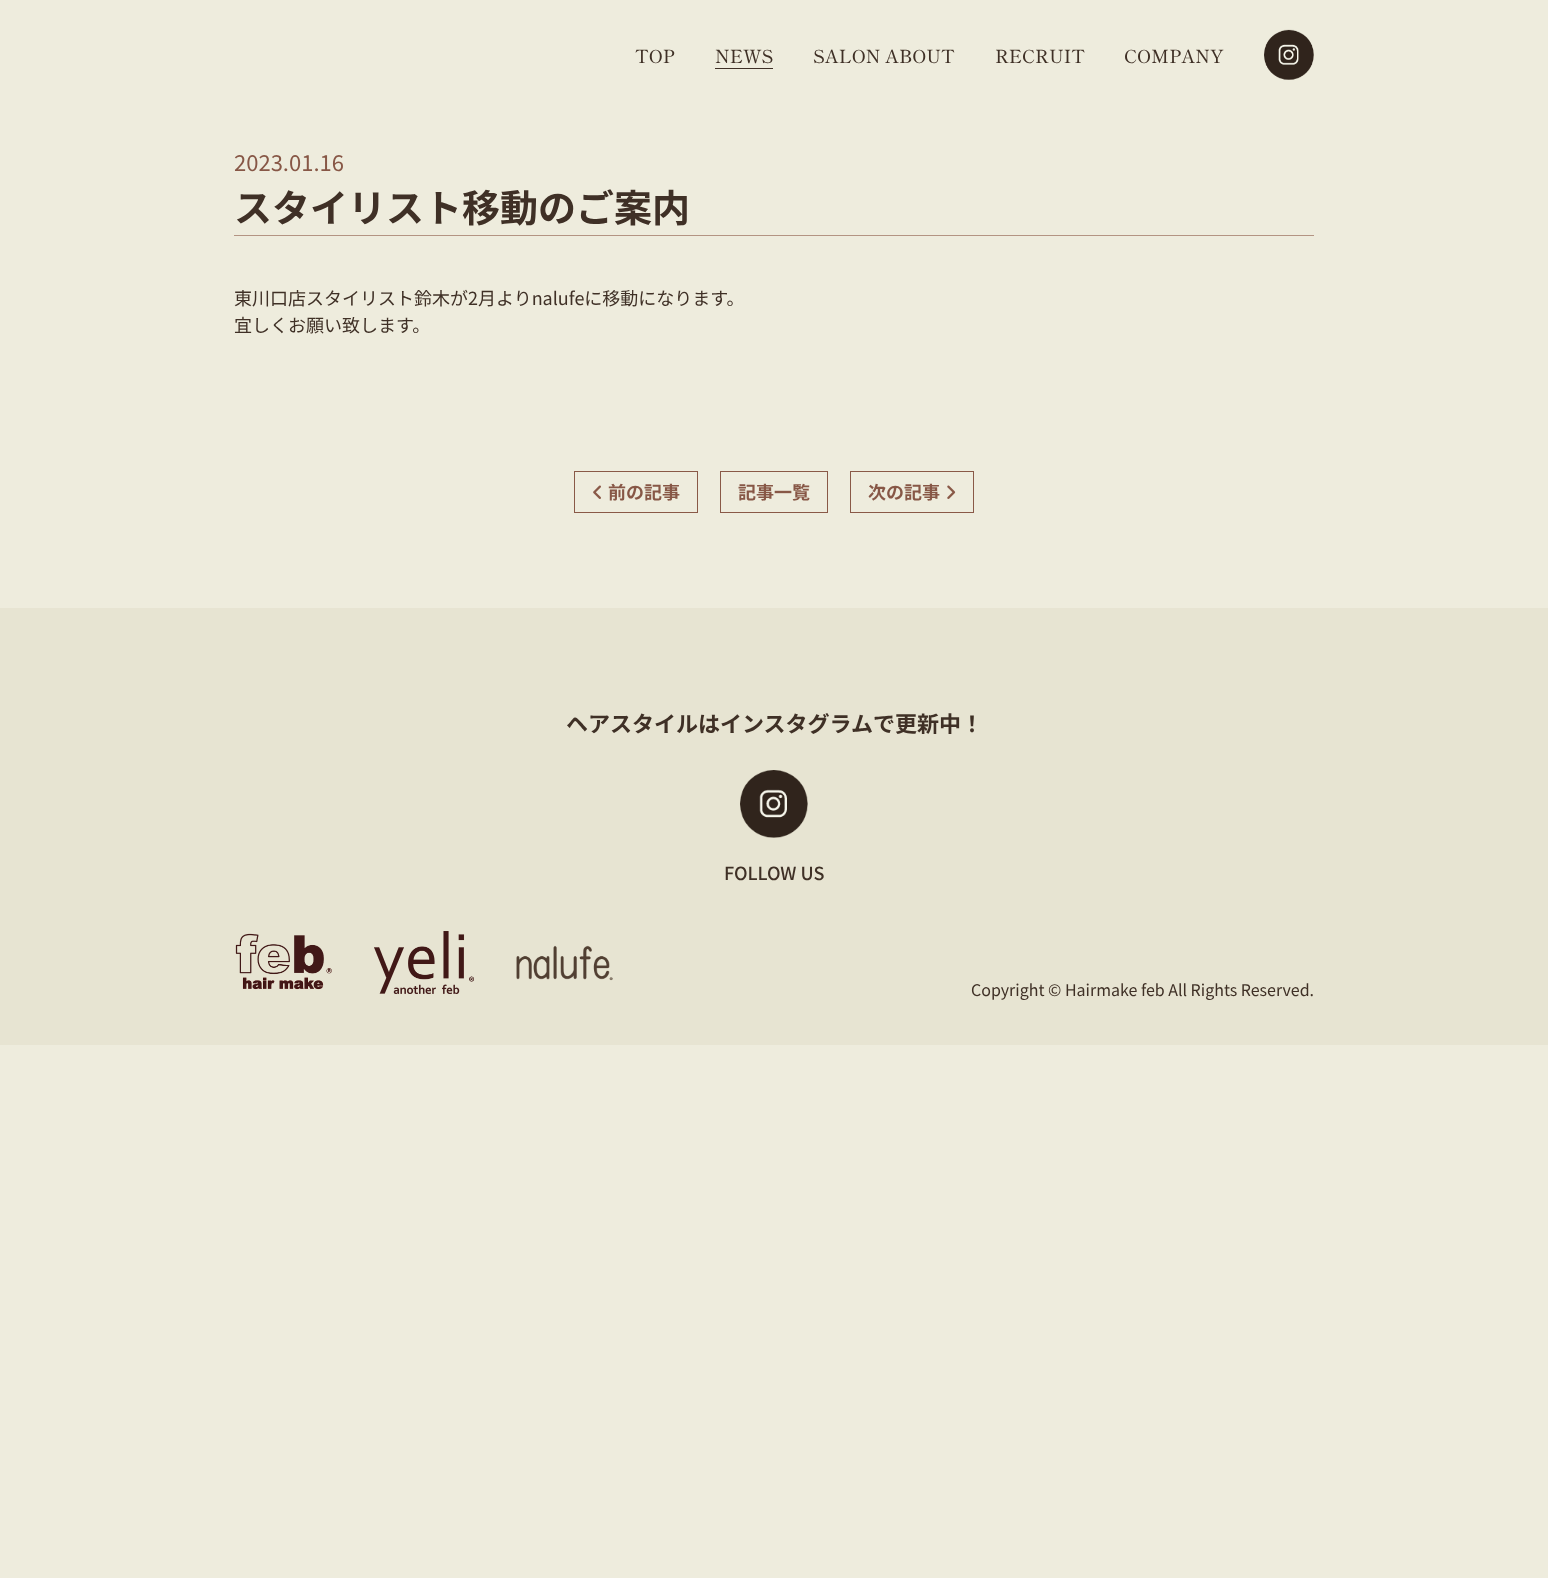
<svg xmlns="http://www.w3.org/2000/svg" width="1548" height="1578">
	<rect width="100%" height="100%" fill="#EEECDD" />
	<g font-family="Shippori Mincho" font-size="18" font-weight="500" fill="#3F3026">
		<text x="635" y="63">TOP</text>
		<text x="715" y="63">NEWS</text>
	</g>
	<rect x="715" y="68" width="58" height="1" fill="#3F3026" />
	<g font-family="Shippori Mincho" font-size="18" font-weight="500" fill="#3F3026">
		<text x="813" y="63">SALON ABOUT</text>
		<text x="995" y="63">RECRUIT</text>
		<text x="1124" y="63">COMPANY</text>
	</g>
	<image x="1264" y="29" width="50" height="51" href="assets/img1.png" />
	<text x="234" y="171" font-family="Noto Sans JP" font-size="22" fill="#875746">2023.01.16</text>
	<rect x="234" y="235" width="1080" height="1" fill="#B39483" />
	<text x="234" y="222" font-family="Noto Sans JP" font-size="38" font-weight="700" fill="#3F3026">スタイリスト移動のご案内</text>
	<g font-family="Noto Sans JP" font-size="18" fill="#3F3026">
		<text x="234" y="305">東川口店スタイリスト鈴木が2月よりnalufeに移動になります。</text>
		<text x="234" y="332">宜しくお願い致します。</text>
	</g>
	<rect x="574.5" y="471.5" width="123" height="41" fill="none" stroke="#895947" />
	<image x="593" y="485" width="8" height="14" href="assets/img2.png" />
	<text x="608" y="499" font-family="Noto Sans JP" font-size="18" font-weight="700" fill="#875746">前の記事</text>
	<rect x="720.5" y="471.5" width="107" height="41" fill="none" stroke="#895947" />
	<text x="738" y="499" font-family="Noto Sans JP" font-size="18" font-weight="700" fill="#875746">記事一覧</text>
	<rect x="850.5" y="471.5" width="123" height="41" fill="none" stroke="#895947" />
	<text x="868" y="499" font-family="Noto Sans JP" font-size="18" font-weight="700" fill="#875746">次の記事</text>
	<image x="947" y="485" width="9" height="14" href="assets/img3.png" />
	<rect x="0" y="608" width="1548" height="437" fill="#E7E4D2" />
	<text x="566" y="732" font-family="Noto Sans JP" font-size="22" font-weight="700" fill="#3F3026">ヘアスタイルはインスタグラムで更新中！</text>
	<image x="740" y="770" width="68" height="68" href="assets/img4.png" />
	<text x="724" y="880" font-family="Noto Sans JP" font-size="18" font-weight="500" fill="#3F3026">FOLLOW US</text>
	<image x="235" y="933" width="97" height="57" href="assets/img5.png" />
	<image x="374" y="931" width="100" height="63" href="assets/img6.png" />
	<image x="516" y="945" width="97" height="36" href="assets/img7.png" />
	<text x="971" y="996" font-family="Noto Sans JP" font-size="16" fill="#3F3026">Copyright © Hairmake feb All Rights Reserved.</text>
</svg>
